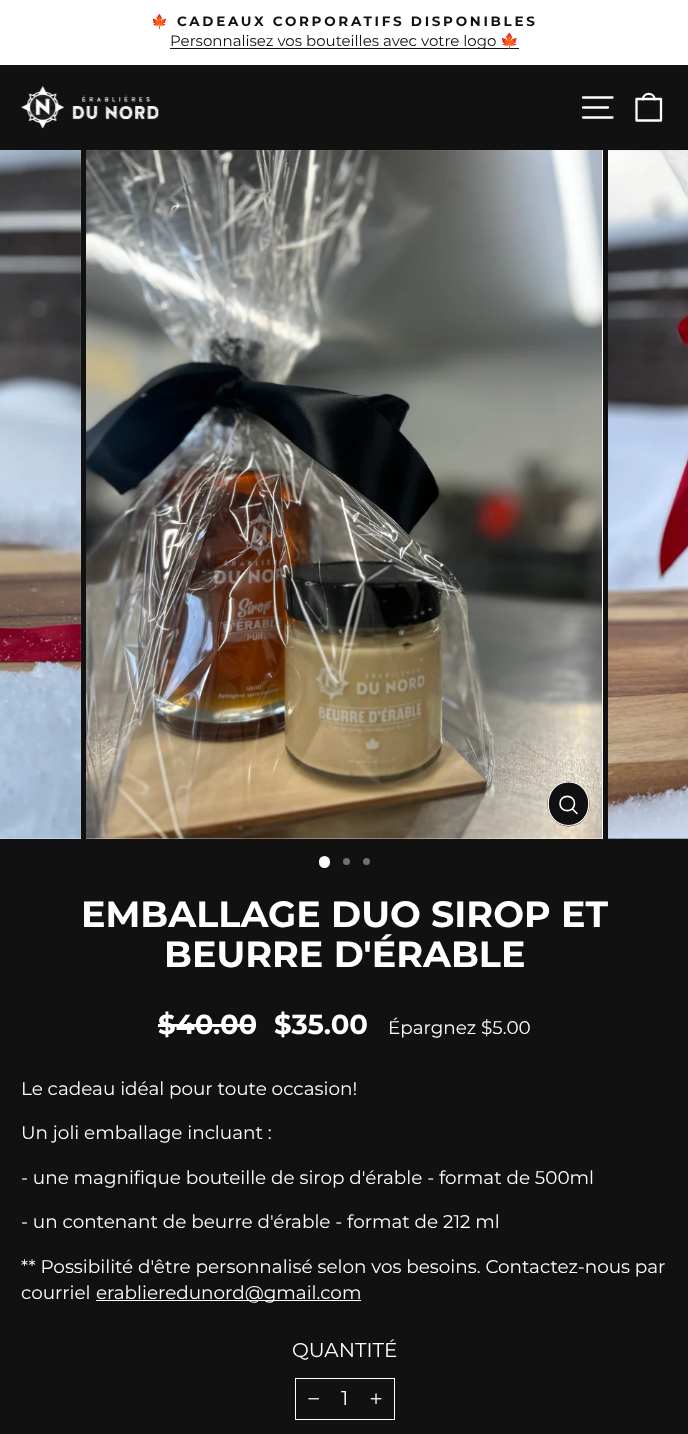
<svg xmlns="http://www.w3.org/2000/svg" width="688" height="1434">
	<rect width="100%" height="100%" fill="#111111" />
	<rect x="0" y="0" width="688" height="65" fill="#FFFFFF" />
	<text x="151" y="26" font-family="Noto Color Emoji" font-size="13.5" font-weight="700" letter-spacing="2.7" fill="#111111">🍁</text>
	<text x="177" y="26" font-family="Montserrat" font-size="13.5" font-weight="700" letter-spacing="2.7" fill="#111111">CADEAUX CORPORATIFS DISPONIBLES</text>
	<rect x="170" y="48" width="349" height="1" fill="#111111" />
	<text x="170" y="46" font-family="Montserrat" font-size="15" fill="#111111">Personnalisez vos bouteilles avec votre logo</text>
	<text x="500" y="46" font-family="Noto Color Emoji" font-size="15" fill="#111111">🍁</text>
	<image x="21" y="86" width="138" height="43" href="assets/img1.png" />
	<path d="M583 97.5H612.5M583 107.5H608M583 117.5H612.5" fill="none" stroke="#FFFFFF" stroke-width="2.3" stroke-linecap="round" stroke-linejoin="round" />
	<path d="M636.5 99H661V120.5H636.5ZM643 99.5C643 92 654.5 92 654.5 99.5" fill="none" stroke="#FFFFFF" stroke-width="2.3" stroke-linecap="round" stroke-linejoin="round" />
	<rect x="0" y="150" width="81" height="689" fill="#FFFFFF" />
	<image x="0" y="150" width="81" height="689" href="assets/img2.png" />
	<rect x="86" y="150" width="517" height="689" fill="#FFFFFF" />
	<image x="86" y="150" width="516" height="689" href="assets/img3.png" />
	<ellipse cx="568.5" cy="804" rx="21" ry="22.5" fill="#111111" />
	<path d="M568.5 782C595.5 782 595.5 825.5 568.5 825.5C541.5 825.5 541.5 782 568.5 782Z" fill="none" stroke="#FFFFFF" stroke-width="1.2" />
	<path d="M574.5 803.5C574.5 813 560 813 560 803.5C560 794 574.5 794 574.5 803.5ZM577 813.5L572.5 809" fill="none" stroke="#FFFFFF" stroke-width="1.6" stroke-linecap="round" stroke-linejoin="round" />
	<image x="608" y="150" width="80" height="689" href="assets/img4.png" />
	<rect x="319" y="856" width="11" height="12" rx="5.5" fill="#FFFFFF" />
	<circle cx="346.5" cy="861.5" r="3.5" fill="#707070" />
	<circle cx="366.5" cy="861.5" r="3.5" fill="#707070" />
	<g font-family="Montserrat" font-size="36.5" font-weight="700" fill="#FFFFFF">
		<text x="81" y="927">EMBALLAGE DUO SIROP ET</text>
		<text x="164" y="967">BEURRE D'ÉRABLE</text>
	</g>
	<text x="158" y="1034" font-family="Montserrat" font-size="27.5" font-weight="700" fill="#FFFFFF">$40.00</text>
	<rect x="158" y="1024" width="98" height="3" fill="#FFFFFF" />
	<text x="274" y="1034" font-family="Montserrat" font-size="27.5" font-weight="700" fill="#FFFFFF">$35.00</text>
	<g font-family="Montserrat" font-size="18.4" fill="#FFFFFF">
		<text x="388" y="1034">Épargnez $5.00</text>
		<text x="21" y="1095">Le cadeau idéal pour toute occasion!</text>
		<text x="21" y="1139">Un joli emballage incluant :</text>
		<text x="21" y="1184">- une magnifique bouteille de sirop d'érable - format de 500ml</text>
		<text x="21" y="1228">- un contenant de beurre d'érable - format de 212 ml</text>
		<text x="21" y="1273">** Possibilité d'être personnalisé selon vos besoins. Contactez-nous par</text>
		<text x="21" y="1299">courriel</text>
	</g>
	<rect x="96" y="1300" width="265" height="1" fill="#FFFFFF" />
	<text x="96" y="1299" font-family="Montserrat" font-size="18.4" fill="#FFFFFF">erablieredunord@gmail.com</text>
	<text x="292" y="1357" font-family="Montserrat" font-size="20" fill="#FFFFFF">QUANTITÉ</text>
	<rect x="295.5" y="1378.5" width="99" height="41" fill="none" stroke="#FFFFFF" />
	<image x="308" y="1398" width="12" height="2" href="assets/img5.png" />
	<text x="341" y="1405" font-family="Montserrat" font-size="20" fill="#FFFFFF">1</text>
	<image x="370" y="1393" width="12" height="12" href="assets/img6.png" />
</svg>
